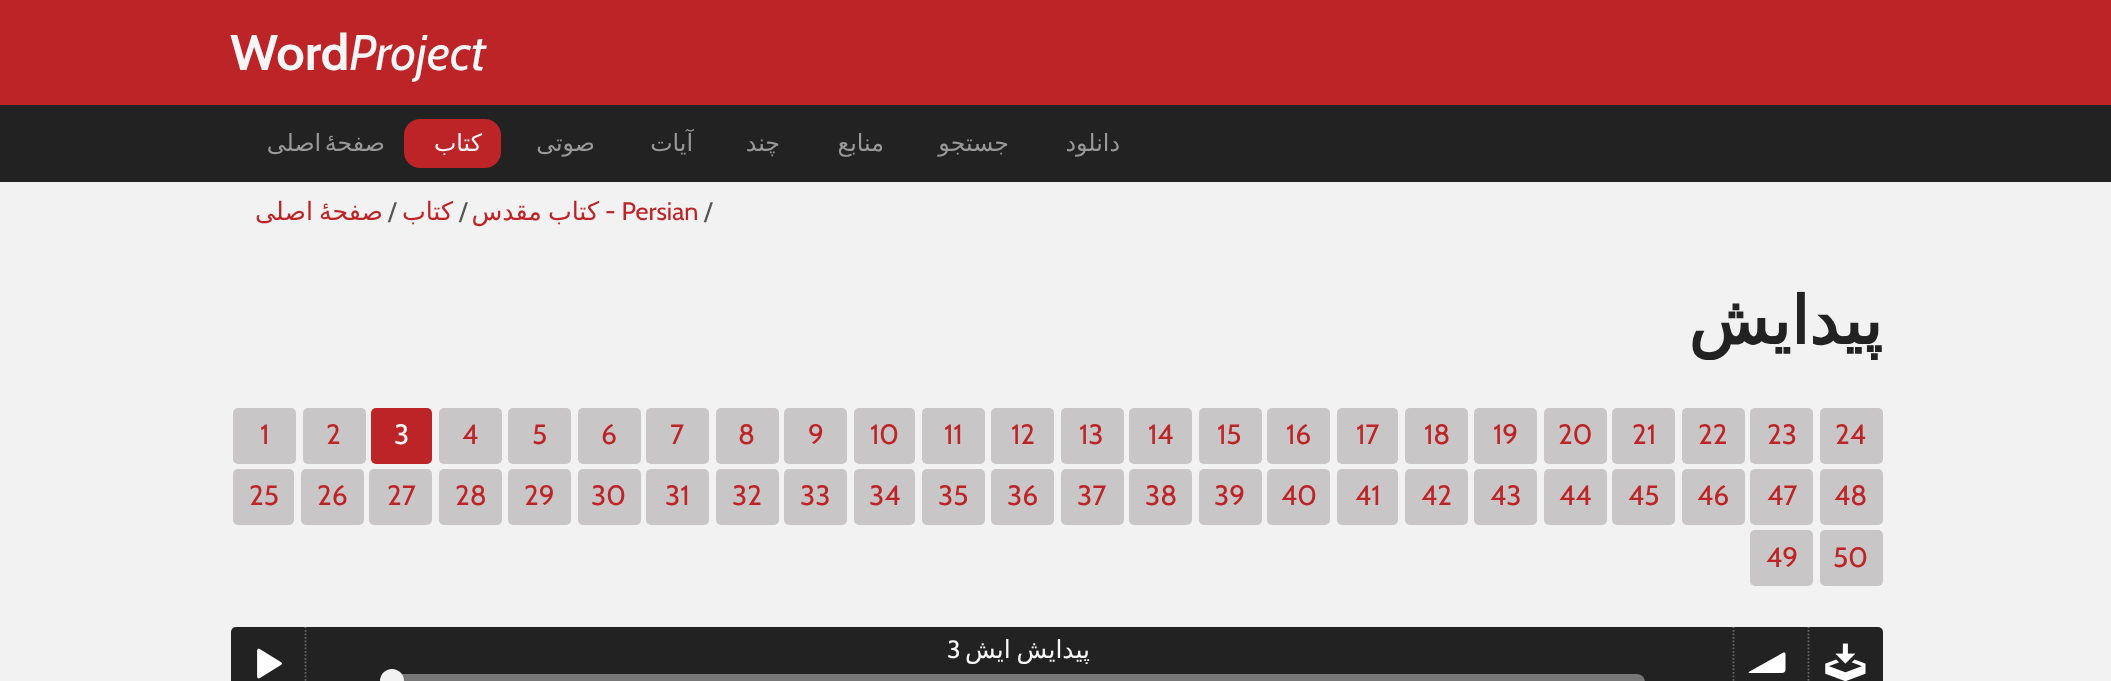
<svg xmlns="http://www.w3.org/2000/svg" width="2111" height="681">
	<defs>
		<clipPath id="clip1"><rect x="231" y="627" width="1652" height="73" rx="5" /></clipPath>
	</defs>
	<rect width="100%" height="100%" fill="#F2F2F2" />
	<rect x="0" y="0" width="2111" height="105" fill="#BD2427" />
	<text x="230" y="70" font-family="Cabin" font-size="50" font-weight="700" fill="#F6F6F6">Word</text>
	<text x="349" y="70" font-family="Cabin" font-size="50" font-style="italic" fill="#F6F6F6">Project</text>
	<rect x="0" y="105" width="2111" height="77" fill="#222222" />
	<text x="385" y="151" word-spacing="-4" font-family="DejaVu Sans" font-size="23.75" letter-spacing="1.25" direction="rtl" fill="#999999">صفحهٔ اصلی</text>
	<rect x="404" y="119" width="97" height="49" rx="16" fill="#BD2427" />
	<text x="482" y="151" font-family="DejaVu Sans" font-size="23.75" letter-spacing="1.25" direction="rtl" fill="#F6F6F6">کتاب</text>
	<g font-family="DejaVu Sans" font-size="23.75" letter-spacing="1.25" direction="rtl" fill="#999999">
		<text x="595" y="151">صوتی</text>
		<text x="693" y="151">آیات</text>
		<text x="780" y="151">چند</text>
		<text x="884" y="151">منابع</text>
		<text x="1009" y="151">جستجو</text>
		<text x="1120" y="151">دانلود</text>
	</g>
	<text x="383" y="220" word-spacing="-2" font-family="DejaVu Sans" font-size="25.25" direction="rtl" fill="#BD2427">صفحهٔ اصلی</text>
	<text x="388" y="220" font-family="Cabin" font-size="25.25" fill="#555555">/</text>
	<text x="453" y="220" font-family="DejaVu Sans" font-size="25.25" direction="rtl" fill="#BD2427">کتاب</text>
	<text x="459" y="220" font-family="Cabin" font-size="25.25" fill="#555555">/</text>
	<text x="599" y="220" word-spacing="-2" font-family="DejaVu Sans" font-size="25.25" direction="rtl" fill="#BD2427">کتاب مقدس</text>
	<text x="605" y="220" font-family="Cabin" font-size="25.25" fill="#BD2427">- Persian</text>
	<text x="704" y="220" font-family="Cabin" font-size="25.25" fill="#555555">/</text>
	<text x="1882" y="344" font-family="DejaVu Sans" font-size="66" font-weight="700" direction="rtl" fill="#222222">پيدايش</text>
	<rect x="233" y="408" width="63" height="56" rx="5" fill="#C8C6C6" />
	<text x="260" y="444" font-family="Cabin" font-size="28" fill="#BD2427">1</text>
	<rect x="303" y="408" width="63" height="56" rx="5" fill="#C8C6C6" />
	<text x="326" y="444" font-family="Cabin" font-size="28" fill="#BD2427">2</text>
	<rect x="371" y="408" width="61" height="56" rx="5" fill="#BD2427" />
	<text x="394" y="444" font-family="Cabin" font-size="28" fill="#F6F6F6">3</text>
	<rect x="439" y="408" width="63" height="56" rx="5" fill="#C8C6C6" />
	<text x="462" y="444" font-family="Cabin" font-size="28" fill="#BD2427">4</text>
	<rect x="508" y="408" width="63" height="56" rx="5" fill="#C8C6C6" />
	<text x="532" y="444" font-family="Cabin" font-size="28" fill="#BD2427">5</text>
	<rect x="578" y="408" width="63" height="56" rx="5" fill="#C8C6C6" />
	<text x="601" y="444" font-family="Cabin" font-size="28" fill="#BD2427">6</text>
	<rect x="646" y="408" width="63" height="56" rx="5" fill="#C8C6C6" />
	<text x="670" y="444" font-family="Cabin" font-size="28" fill="#BD2427">7</text>
	<rect x="716" y="408" width="63" height="56" rx="5" fill="#C8C6C6" />
	<text x="738" y="444" font-family="Cabin" font-size="28" fill="#BD2427">8</text>
	<rect x="784" y="408" width="63" height="56" rx="5" fill="#C8C6C6" />
	<text x="808" y="444" font-family="Cabin" font-size="28" fill="#BD2427">9</text>
	<rect x="854" y="408" width="61" height="56" rx="5" fill="#C8C6C6" />
	<text x="870" y="444" font-family="Cabin" font-size="28" fill="#BD2427">10</text>
	<rect x="922" y="408" width="63" height="56" rx="5" fill="#C8C6C6" />
	<text x="944" y="444" font-family="Cabin" font-size="28" fill="#BD2427">11</text>
	<rect x="991" y="408" width="63" height="56" rx="5" fill="#C8C6C6" />
	<text x="1011" y="444" font-family="Cabin" font-size="28" fill="#BD2427">12</text>
	<rect x="1061" y="408" width="63" height="56" rx="5" fill="#C8C6C6" />
	<text x="1079" y="444" font-family="Cabin" font-size="28" fill="#BD2427">13</text>
	<rect x="1129" y="408" width="63" height="56" rx="5" fill="#C8C6C6" />
	<text x="1148" y="444" font-family="Cabin" font-size="28" fill="#BD2427">14</text>
	<rect x="1199" y="408" width="63" height="56" rx="5" fill="#C8C6C6" />
	<text x="1217" y="444" font-family="Cabin" font-size="28" fill="#BD2427">15</text>
	<rect x="1267" y="408" width="63" height="56" rx="5" fill="#C8C6C6" />
	<text x="1286" y="444" font-family="Cabin" font-size="28" fill="#BD2427">16</text>
	<rect x="1337" y="408" width="61" height="56" rx="5" fill="#C8C6C6" />
	<text x="1356" y="444" font-family="Cabin" font-size="28" fill="#BD2427">17</text>
	<rect x="1405" y="408" width="63" height="56" rx="5" fill="#C8C6C6" />
	<text x="1424" y="444" font-family="Cabin" font-size="28" fill="#BD2427">18</text>
	<rect x="1474" y="408" width="63" height="56" rx="5" fill="#C8C6C6" />
	<text x="1493" y="444" font-family="Cabin" font-size="28" fill="#BD2427">19</text>
	<rect x="1544" y="408" width="63" height="56" rx="5" fill="#C8C6C6" />
	<text x="1558" y="444" font-family="Cabin" font-size="28" fill="#BD2427">20</text>
	<rect x="1612" y="408" width="63" height="56" rx="5" fill="#C8C6C6" />
	<text x="1632" y="444" font-family="Cabin" font-size="28" fill="#BD2427">21</text>
	<rect x="1682" y="408" width="63" height="56" rx="5" fill="#C8C6C6" />
	<text x="1698" y="444" font-family="Cabin" font-size="28" fill="#BD2427">22</text>
	<rect x="1750" y="408" width="63" height="56" rx="5" fill="#C8C6C6" />
	<text x="1767" y="444" font-family="Cabin" font-size="28" fill="#BD2427">23</text>
	<rect x="1820" y="408" width="63" height="56" rx="5" fill="#C8C6C6" />
	<text x="1835" y="444" font-family="Cabin" font-size="28" fill="#BD2427">24</text>
	<rect x="233" y="469" width="61" height="56" rx="5" fill="#C8C6C6" />
	<text x="249" y="505" font-family="Cabin" font-size="28" fill="#BD2427">25</text>
	<rect x="301" y="469" width="63" height="56" rx="5" fill="#C8C6C6" />
	<text x="317" y="505" font-family="Cabin" font-size="28" fill="#BD2427">26</text>
	<rect x="369" y="469" width="63" height="56" rx="5" fill="#C8C6C6" />
	<text x="387" y="505" font-family="Cabin" font-size="28" fill="#BD2427">27</text>
	<rect x="439" y="469" width="63" height="56" rx="5" fill="#C8C6C6" />
	<text x="455" y="505" font-family="Cabin" font-size="28" fill="#BD2427">28</text>
	<rect x="508" y="469" width="63" height="56" rx="5" fill="#C8C6C6" />
	<text x="524" y="505" font-family="Cabin" font-size="28" fill="#BD2427">29</text>
	<rect x="578" y="469" width="63" height="56" rx="5" fill="#C8C6C6" />
	<text x="591" y="505" font-family="Cabin" font-size="28" fill="#BD2427">30</text>
	<rect x="646" y="469" width="63" height="56" rx="5" fill="#C8C6C6" />
	<text x="665" y="505" font-family="Cabin" font-size="28" fill="#BD2427">31</text>
	<rect x="716" y="469" width="63" height="56" rx="5" fill="#C8C6C6" />
	<text x="732" y="505" font-family="Cabin" font-size="28" fill="#BD2427">32</text>
	<rect x="784" y="469" width="63" height="56" rx="5" fill="#C8C6C6" />
	<text x="800" y="505" font-family="Cabin" font-size="28" fill="#BD2427">33</text>
	<rect x="854" y="469" width="61" height="56" rx="5" fill="#C8C6C6" />
	<text x="869" y="505" font-family="Cabin" font-size="28" fill="#BD2427">34</text>
	<rect x="922" y="469" width="63" height="56" rx="5" fill="#C8C6C6" />
	<text x="938" y="505" font-family="Cabin" font-size="28" fill="#BD2427">35</text>
	<rect x="991" y="469" width="63" height="56" rx="5" fill="#C8C6C6" />
	<text x="1007" y="505" font-family="Cabin" font-size="28" fill="#BD2427">36</text>
	<rect x="1061" y="469" width="63" height="56" rx="5" fill="#C8C6C6" />
	<text x="1077" y="505" font-family="Cabin" font-size="28" fill="#BD2427">37</text>
	<rect x="1129" y="469" width="63" height="56" rx="5" fill="#C8C6C6" />
	<text x="1145" y="505" font-family="Cabin" font-size="28" fill="#BD2427">38</text>
	<rect x="1199" y="469" width="63" height="56" rx="5" fill="#C8C6C6" />
	<text x="1214" y="505" font-family="Cabin" font-size="28" fill="#BD2427">39</text>
	<rect x="1267" y="469" width="63" height="56" rx="5" fill="#C8C6C6" />
	<text x="1281" y="505" font-family="Cabin" font-size="28" fill="#BD2427">40</text>
	<rect x="1337" y="469" width="61" height="56" rx="5" fill="#C8C6C6" />
	<text x="1355" y="505" font-family="Cabin" font-size="28" fill="#BD2427">41</text>
	<rect x="1405" y="469" width="63" height="56" rx="5" fill="#C8C6C6" />
	<text x="1421" y="505" font-family="Cabin" font-size="28" fill="#BD2427">42</text>
	<rect x="1474" y="469" width="63" height="56" rx="5" fill="#C8C6C6" />
	<text x="1490" y="505" font-family="Cabin" font-size="28" fill="#BD2427">43</text>
	<rect x="1544" y="469" width="63" height="56" rx="5" fill="#C8C6C6" />
	<text x="1559" y="505" font-family="Cabin" font-size="28" fill="#BD2427">44</text>
	<rect x="1612" y="469" width="63" height="56" rx="5" fill="#C8C6C6" />
	<text x="1628" y="505" font-family="Cabin" font-size="28" fill="#BD2427">45</text>
	<rect x="1682" y="469" width="63" height="56" rx="5" fill="#C8C6C6" />
	<text x="1697" y="505" font-family="Cabin" font-size="28" fill="#BD2427">46</text>
	<rect x="1750" y="469" width="63" height="56" rx="5" fill="#C8C6C6" />
	<text x="1767" y="505" font-family="Cabin" font-size="28" fill="#BD2427">47</text>
	<rect x="1820" y="469" width="63" height="56" rx="5" fill="#C8C6C6" />
	<text x="1834" y="505" font-family="Cabin" font-size="28" fill="#BD2427">48</text>
	<rect x="1750" y="530" width="63" height="56" rx="5" fill="#C8C6C6" />
	<text x="1766" y="567" font-family="Cabin" font-size="28" fill="#BD2427">49</text>
	<rect x="1820" y="530" width="63" height="56" rx="5" fill="#C8C6C6" />
	<text x="1833" y="567" font-family="Cabin" font-size="28" fill="#BD2427">50</text>
	<rect x="231" y="627" width="1652" height="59" rx="5" fill="#222222" />
	<g clip-path="url(#clip1)">
		<path d="M305.5 626.5V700" fill="none" stroke="#666666" stroke-width="1.8" stroke-dasharray="1.75 1.75" />
	</g>
	<image x="257" y="648" width="25" height="31" href="assets/img1.png" />
	<g clip-path="url(#clip1)">
		<path d="M1733.5 626.5V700" fill="none" stroke="#666666" stroke-width="1.8" stroke-dasharray="1.75 1.75" />
	</g>
	<text x="947" y="658" font-family="Cabin" font-size="25" fill="#F6F6F6">3</text>
	<text x="1090" y="658" word-spacing="-2" font-family="DejaVu Sans" font-size="25" direction="rtl" fill="#F6F6F6">پيدايش ايش</text>
	<rect x="392" y="674" width="1253" height="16" rx="8.5" fill="#777777" />
	<circle cx="392" cy="681" r="12" fill="#F2F2F2" />
	<g clip-path="url(#clip1)">
		<path d="M1808.5 626.5V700" fill="none" stroke="#666666" stroke-width="1.8" stroke-dasharray="1.75 1.75" />
	</g>
	<path d="M1785.5 670C1785.5 671.5 1784 673 1782 673H1750C1748.5 673 1748 672.5 1749.5 671.5L1782.5 653C1784.5 652 1785.5 652.5 1785.5 654.5Z" fill="#FFFFFF" />
	<image x="1825" y="643" width="41" height="38" href="assets/img2.png" />
</svg>
